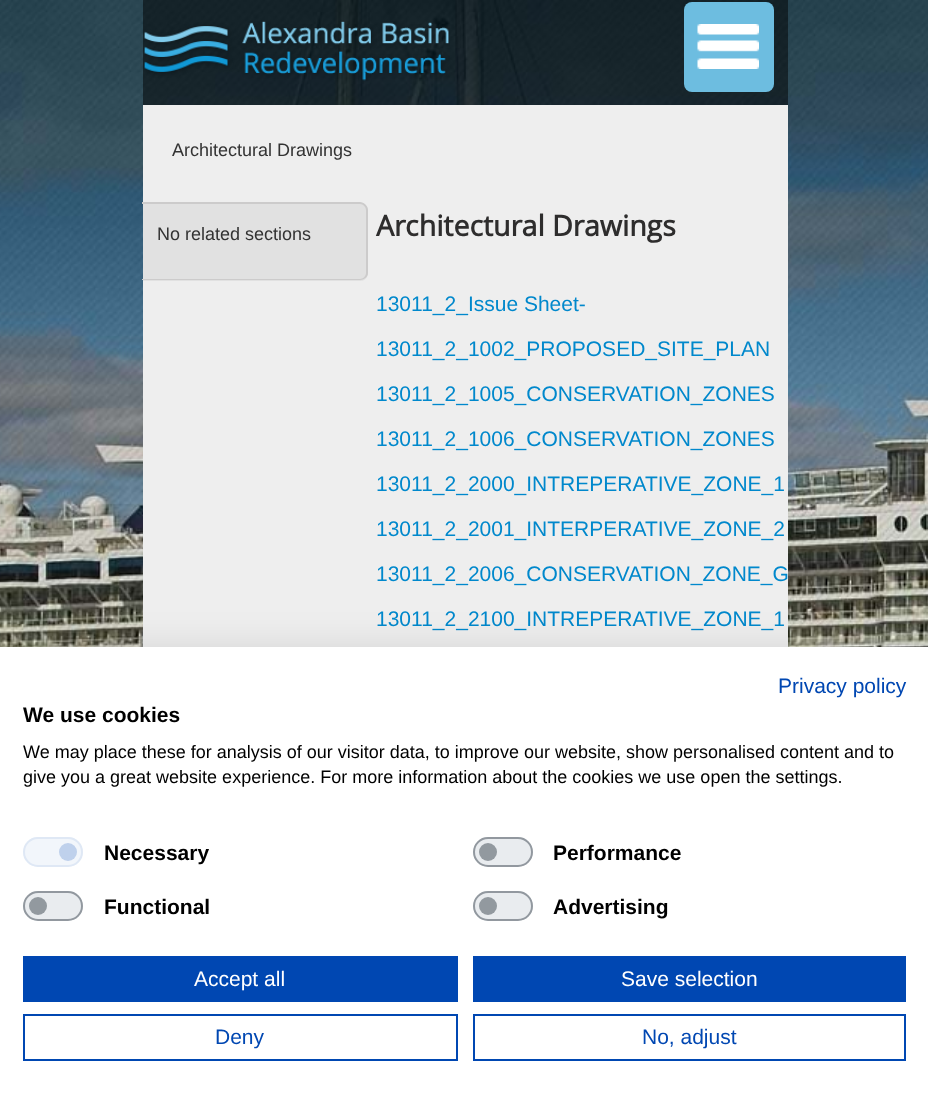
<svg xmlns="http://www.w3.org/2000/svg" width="928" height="1101">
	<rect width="100%" height="100%" fill="#FFFFFF" />
	<image x="0" y="0" width="928" height="647" href="assets/img1.png" />
	<rect x="143" y="0" width="645" height="105" fill="#000000" fill-opacity="0.5" />
	<image x="144" y="21" width="306" height="60" href="assets/img2.png" />
	<rect x="684" y="2" width="90" height="90" rx="8" fill="#6DBDE0" />
	<image x="697" y="24" width="62" height="45" href="assets/img3.png" />
	<rect x="143" y="105" width="645" height="542" fill="#EEEEEE" />
	<text x="172" y="156" font-family="Liberation Sans" font-size="18" fill="#333333">Architectural Drawings</text>
	<path d="M143 203H360C364.5 203 368 206.5 368 211V273C368 277.5 364.5 281 360 281H143Z" fill="#E1E1E1" />
	<path d="M142 202H360C364 202 368 206 368 210V273C368 277 364 280 360 280H142ZM142 204H360C363 204 366 207 366 210V273C366 276 363 279 360 279H142Z" fill="#CCCBCB" fill-rule="evenodd" />
	<text x="157" y="240" font-family="Liberation Sans" font-size="18" fill="#333333">No related sections</text>
	<text x="376" y="236" font-family="Open Sans" font-size="28.5" font-weight="700" fill="#2E2D2D">Architectural Drawings</text>
	<g font-family="Liberation Sans" font-size="21" fill="#0088CC">
		<text x="376" y="311">13011_2_Issue Sheet-</text>
		<text x="376" y="356">13011_2_1002_PROPOSED_SITE_PLAN</text>
		<text x="376" y="401">13011_2_1005_CONSERVATION_ZONES</text>
		<text x="376" y="446">13011_2_1006_CONSERVATION_ZONES</text>
		<text x="376" y="491">13011_2_2000_INTREPERATIVE_ZONE_1</text>
		<text x="376" y="536">13011_2_2001_INTERPERATIVE_ZONE_2</text>
		<text x="376" y="581">13011_2_2006_CONSERVATION_ZONE_G</text>
		<text x="376" y="626">13011_2_2100_INTREPERATIVE_ZONE_1</text>
	</g>
	<rect x="0" y="647" width="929" height="454" fill="#000000" fill-opacity="0.1" filter="blur(18px)" />
	<rect x="0" y="647" width="928" height="454" fill="#FFFFFF" />
	<text x="778" y="693" font-family="Liberation Sans" font-size="21" fill="#0047B2">Privacy policy</text>
	<text x="23" y="722" font-family="Liberation Sans" font-size="21" font-weight="700" fill="#000000">We use cookies</text>
	<g font-family="Liberation Sans" font-size="18" fill="#000000">
		<text x="23" y="758">We may place these for analysis of our visitor data, to improve our website, show personalised content and to</text>
		<text x="23" y="783">give you a great website experience. For more information about the cookies we use open the settings.</text>
	</g>
	<rect x="23" y="837" width="60" height="30" rx="15" fill="#F2F6FB" />
	<circle cx="68" cy="852" r="9" fill="#BFD1EC" />
	<rect x="24" y="838" width="58" height="28" rx="14" fill="none" stroke="#DFE8F5" stroke-width="2" />
	<text x="104" y="860" font-family="Liberation Sans" font-size="21" font-weight="700" fill="#000000">Necessary</text>
	<rect x="473" y="837" width="60" height="30" rx="15" fill="#E9ECEF" />
	<circle cx="488" cy="852" r="9" fill="#92999F" />
	<rect x="474" y="838" width="58" height="28" rx="14" fill="none" stroke="#6C757D" stroke-opacity="0.7" stroke-width="2" />
	<text x="553" y="860" font-family="Liberation Sans" font-size="21" font-weight="700" fill="#000000">Performance</text>
	<rect x="23" y="891" width="60" height="30" rx="15" fill="#E9ECEF" />
	<circle cx="38" cy="906" r="9" fill="#92999F" />
	<rect x="24" y="892" width="58" height="28" rx="14" fill="none" stroke="#6C757D" stroke-opacity="0.7" stroke-width="2" />
	<text x="104" y="914" font-family="Liberation Sans" font-size="21" font-weight="700" fill="#000000">Functional</text>
	<rect x="473" y="891" width="60" height="30" rx="15" fill="#E9ECEF" />
	<circle cx="488" cy="906" r="9" fill="#92999F" />
	<rect x="474" y="892" width="58" height="28" rx="14" fill="none" stroke="#6C757D" stroke-opacity="0.7" stroke-width="2" />
	<text x="553" y="914" font-family="Liberation Sans" font-size="21" font-weight="700" fill="#000000">Advertising</text>
	<rect x="23" y="956" width="435" height="46" fill="#0047B2" />
	<text x="194" y="986" font-family="Liberation Sans" font-size="21" fill="#FFFFFF">Accept all</text>
	<rect x="473" y="956" width="433" height="46" fill="#0047B2" />
	<text x="621" y="986" font-family="Liberation Sans" font-size="21" fill="#FFFFFF">Save selection</text>
	<rect x="24" y="1015" width="433" height="45" fill="none" stroke="#0047B2" stroke-width="2" />
	<text x="215" y="1044" font-family="Liberation Sans" font-size="21" fill="#0047B2">Deny</text>
	<rect x="474" y="1015" width="431" height="45" fill="none" stroke="#0047B2" stroke-width="2" />
	<text x="642" y="1044" font-family="Liberation Sans" font-size="21" fill="#0047B2">No, adjust</text>
</svg>
